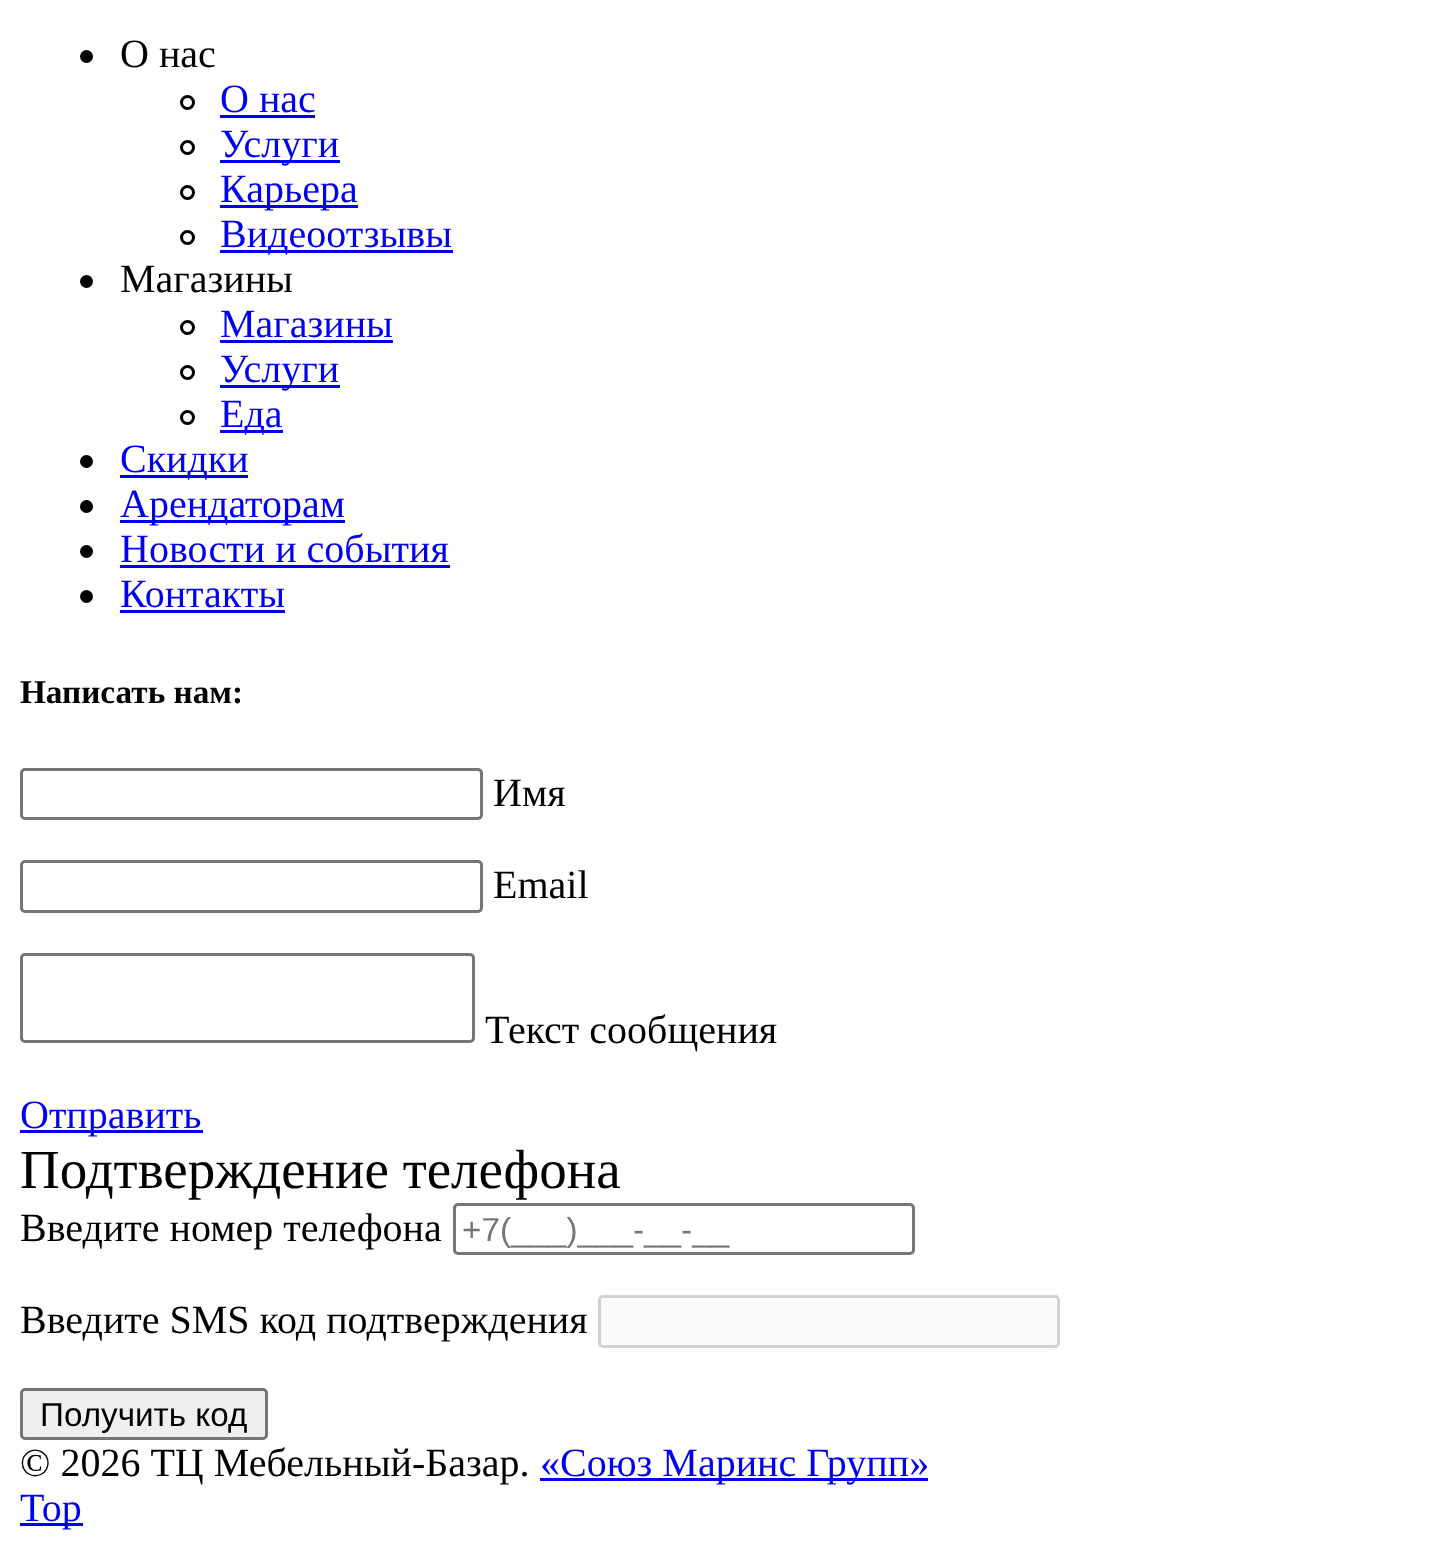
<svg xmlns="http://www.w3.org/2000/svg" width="1432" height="1550">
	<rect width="100%" height="100%" fill="#FFFFFF" />
	<circle cx="86.5" cy="56.5" r="6.5" fill="#000000" />
	<text x="120" y="67" font-family="Liberation Serif" font-size="40" fill="#000000">О нас</text>
	<circle cx="187.5" cy="102.5" r="6" fill="none" stroke="#000000" stroke-width="3" />
	<text x="220" y="112" font-family="Liberation Serif" font-size="40" fill="#0000EE">О нас</text>
	<rect x="220" y="115" width="95" height="3" fill="#0000EE" />
	<circle cx="187.5" cy="147.5" r="6" fill="none" stroke="#000000" stroke-width="3" />
	<rect x="220" y="160" width="120" height="3" fill="#0000EE" />
	<text x="220" y="157" font-family="Liberation Serif" font-size="40" fill="#0000EE">Услуги</text>
	<circle cx="187.5" cy="192.5" r="6" fill="none" stroke="#000000" stroke-width="3" />
	<rect x="220" y="205" width="138" height="3" fill="#0000EE" />
	<text x="220" y="202" font-family="Liberation Serif" font-size="40" fill="#0000EE">Карьера</text>
	<circle cx="187.5" cy="237.5" r="6" fill="none" stroke="#000000" stroke-width="3" />
	<rect x="220" y="250" width="233" height="3" fill="#0000EE" />
	<text x="220" y="247" font-family="Liberation Serif" font-size="40" fill="#0000EE">Видеоотзывы</text>
	<circle cx="86.5" cy="281.5" r="6.5" fill="#000000" />
	<text x="120" y="292" font-family="Liberation Serif" font-size="40" fill="#000000">Магазины</text>
	<circle cx="187.5" cy="327.5" r="6" fill="none" stroke="#000000" stroke-width="3" />
	<text x="220" y="337" font-family="Liberation Serif" font-size="40" fill="#0000EE">Магазины</text>
	<rect x="220" y="340" width="173" height="3" fill="#0000EE" />
	<circle cx="187.5" cy="372.5" r="6" fill="none" stroke="#000000" stroke-width="3" />
	<rect x="220" y="385" width="120" height="3" fill="#0000EE" />
	<text x="220" y="382" font-family="Liberation Serif" font-size="40" fill="#0000EE">Услуги</text>
	<circle cx="187.5" cy="417.5" r="6" fill="none" stroke="#000000" stroke-width="3" />
	<rect x="220" y="430" width="63" height="3" fill="#0000EE" />
	<text x="220" y="427" font-family="Liberation Serif" font-size="40" fill="#0000EE">Еда</text>
	<circle cx="86.5" cy="461.5" r="6.5" fill="#000000" />
	<rect x="120" y="475" width="128" height="3" fill="#0000EE" />
	<text x="120" y="472" font-family="Liberation Serif" font-size="40" fill="#0000EE">Скидки</text>
	<circle cx="86.5" cy="506.5" r="6.5" fill="#000000" />
	<rect x="120" y="520" width="225" height="3" fill="#0000EE" />
	<text x="120" y="517" font-family="Liberation Serif" font-size="40" fill="#0000EE">Арендаторам</text>
	<circle cx="86.5" cy="551.5" r="6.5" fill="#000000" />
	<text x="120" y="562" font-family="Liberation Serif" font-size="40" fill="#0000EE">Новости и события</text>
	<rect x="120" y="565" width="330" height="3" fill="#0000EE" />
	<circle cx="86.5" cy="596.5" r="6.5" fill="#000000" />
	<text x="120" y="607" font-family="Liberation Serif" font-size="40" fill="#0000EE">Контакты</text>
	<rect x="120" y="610" width="165" height="3" fill="#0000EE" />
	<text x="20" y="703" font-family="Liberation Serif" font-size="33.25" font-weight="700" fill="#000000">Написать нам:</text>
	<rect x="21.5" y="769.5" width="460" height="49" rx="3.5" fill="none" stroke="#767676" stroke-width="3" />
	<text x="493" y="806" font-family="Liberation Serif" font-size="40" fill="#000000">Имя</text>
	<rect x="21.5" y="861.5" width="460" height="50" rx="3.5" fill="none" stroke="#767676" stroke-width="3" />
	<text x="493" y="898" font-family="Liberation Serif" font-size="40" fill="#000000">Email</text>
	<rect x="21.5" y="954.5" width="452" height="87" rx="3.5" fill="none" stroke="#767676" stroke-width="3" />
	<text x="485" y="1043" font-family="Liberation Serif" font-size="40" fill="#000000">Текст сообщения</text>
	<rect x="20" y="1130" width="183" height="3" fill="#0000EE" />
	<text x="20" y="1128" font-family="Liberation Serif" font-size="40" fill="#0000EE">Отправить</text>
	<text x="20" y="1188" font-family="Liberation Serif" font-size="55" fill="#000000">Подтверждение телефона</text>
	<text x="20" y="1241" font-family="Liberation Serif" font-size="40" fill="#000000">Введите номер телефона</text>
	<rect x="454.5" y="1204.5" width="459" height="49" rx="3.5" fill="none" stroke="#767676" stroke-width="3" />
	<text x="462" y="1241" font-family="Liberation Sans" font-size="33.25" fill="#757575">+7(___)___-__-__</text>
	<text x="20" y="1333" font-family="Liberation Serif" font-size="40" fill="#000000">Введите SMS код подтверждения</text>
	<rect x="599.5" y="1296.5" width="459" height="50" rx="3.5" fill="#FAFAFA" stroke="#D2D2D2" stroke-width="3" />
	<rect x="21.5" y="1389.5" width="245" height="49" rx="3.5" fill="#EFEFEF" stroke="#767676" stroke-width="3" />
	<text x="40" y="1426" font-family="Liberation Sans" font-size="33.25" fill="#000000">Получить код</text>
	<text x="20" y="1476" font-family="Liberation Serif" font-size="40" fill="#000000">© 2026 ТЦ Мебельный-Базар.</text>
	<rect x="540" y="1478" width="388" height="3" fill="#0000EE" />
	<text x="540" y="1476" font-family="Liberation Serif" font-size="40" fill="#0000EE">«Союз Маринс Групп»</text>
	<rect x="20" y="1523" width="63" height="3" fill="#0000EE" />
	<text x="20" y="1521" font-family="Liberation Serif" font-size="40" fill="#0000EE">Top</text>
</svg>
